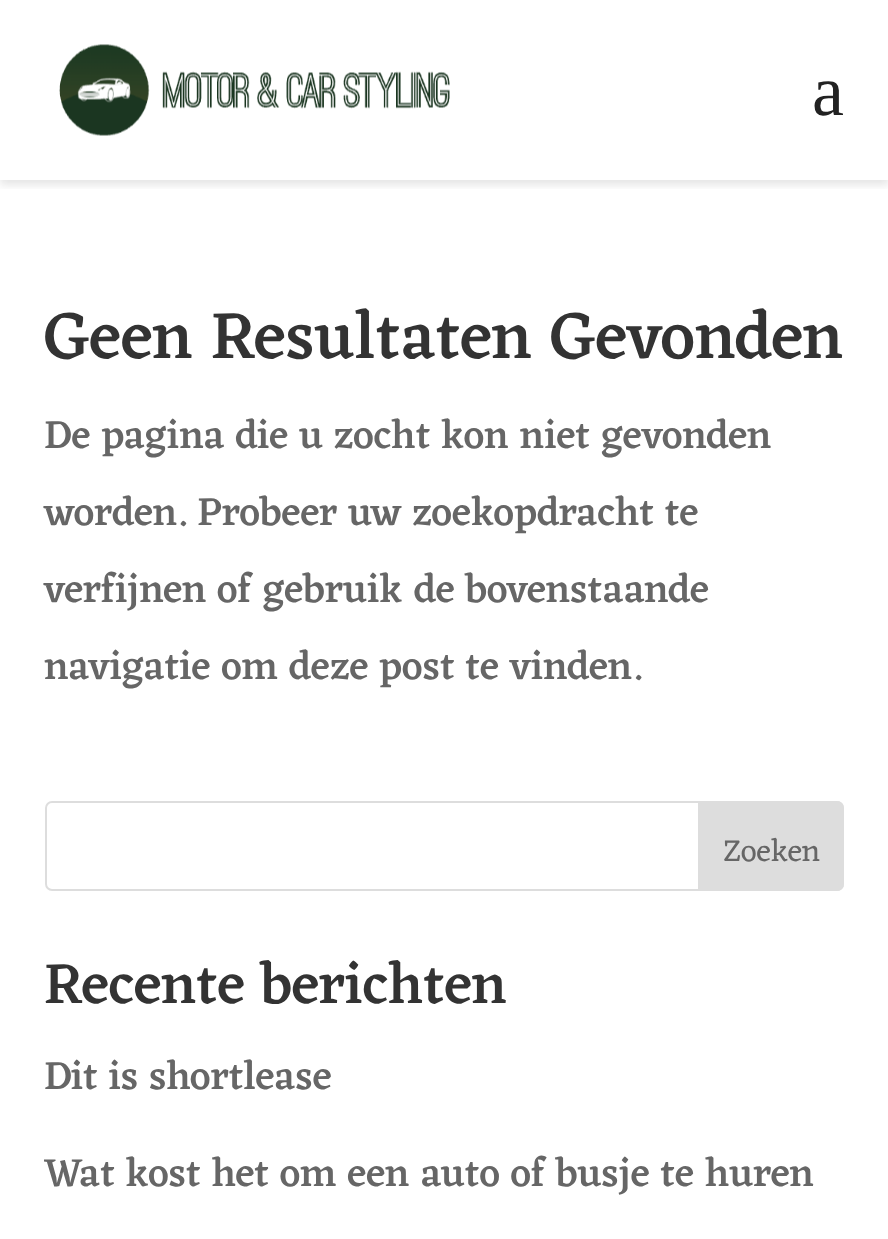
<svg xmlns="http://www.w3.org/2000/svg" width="888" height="1239">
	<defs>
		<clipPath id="clip1"><rect x="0" y="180" width="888" height="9" /></clipPath>
	</defs>
	<rect width="100%" height="100%" fill="#FFFFFF" />
	<g clip-path="url(#clip1)">
		<rect x="0" y="5" width="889" height="180" fill="#000000" fill-opacity="0.1" filter="blur(4.5px)" />
	</g>
	<image x="59" y="44" width="391" height="92" href="assets/img1.png" />
	<text x="812" y="115" font-family="Liberation Serif" font-size="72" fill="#222222">a</text>
	<text x="44" y="358" font-family="Eczar" font-size="67.5" font-weight="500" fill="#333333">Geen Resultaten Gevonden</text>
	<g font-family="Eczar" font-size="40.5" font-weight="500" fill="#666666">
		<text x="44" y="448">De pagina die u zocht kon niet gevonden</text>
		<text x="44" y="525">worden. Probeer uw zoekopdracht te</text>
		<text x="44" y="602">verfijnen of gebruik de bovenstaande</text>
		<text x="44" y="679">navigatie om deze post te vinden.</text>
	</g>
	<rect x="46" y="802" width="797" height="88" rx="6" fill="none" stroke="#DDDDDD" stroke-width="2" />
	<path d="M699 802H837C840.5 802 843 804.5 843 808V884C843 887.5 840.5 890 837 890H699Z" fill="#DDDDDD" stroke="#DDDDDD" stroke-width="2" />
	<text x="723" y="861" font-family="Eczar" font-size="31.5" fill="#666666">Zoeken</text>
	<text x="44" y="1003" font-family="Eczar" font-size="58.5" font-weight="500" fill="#333333">Recente berichten</text>
	<g font-family="Eczar" font-size="40.5" font-weight="500" fill="#666666">
		<text x="44" y="1089">Dit is shortlease</text>
		<text x="44" y="1186">Wat kost het om een auto of busje te huren</text>
	</g>
</svg>
